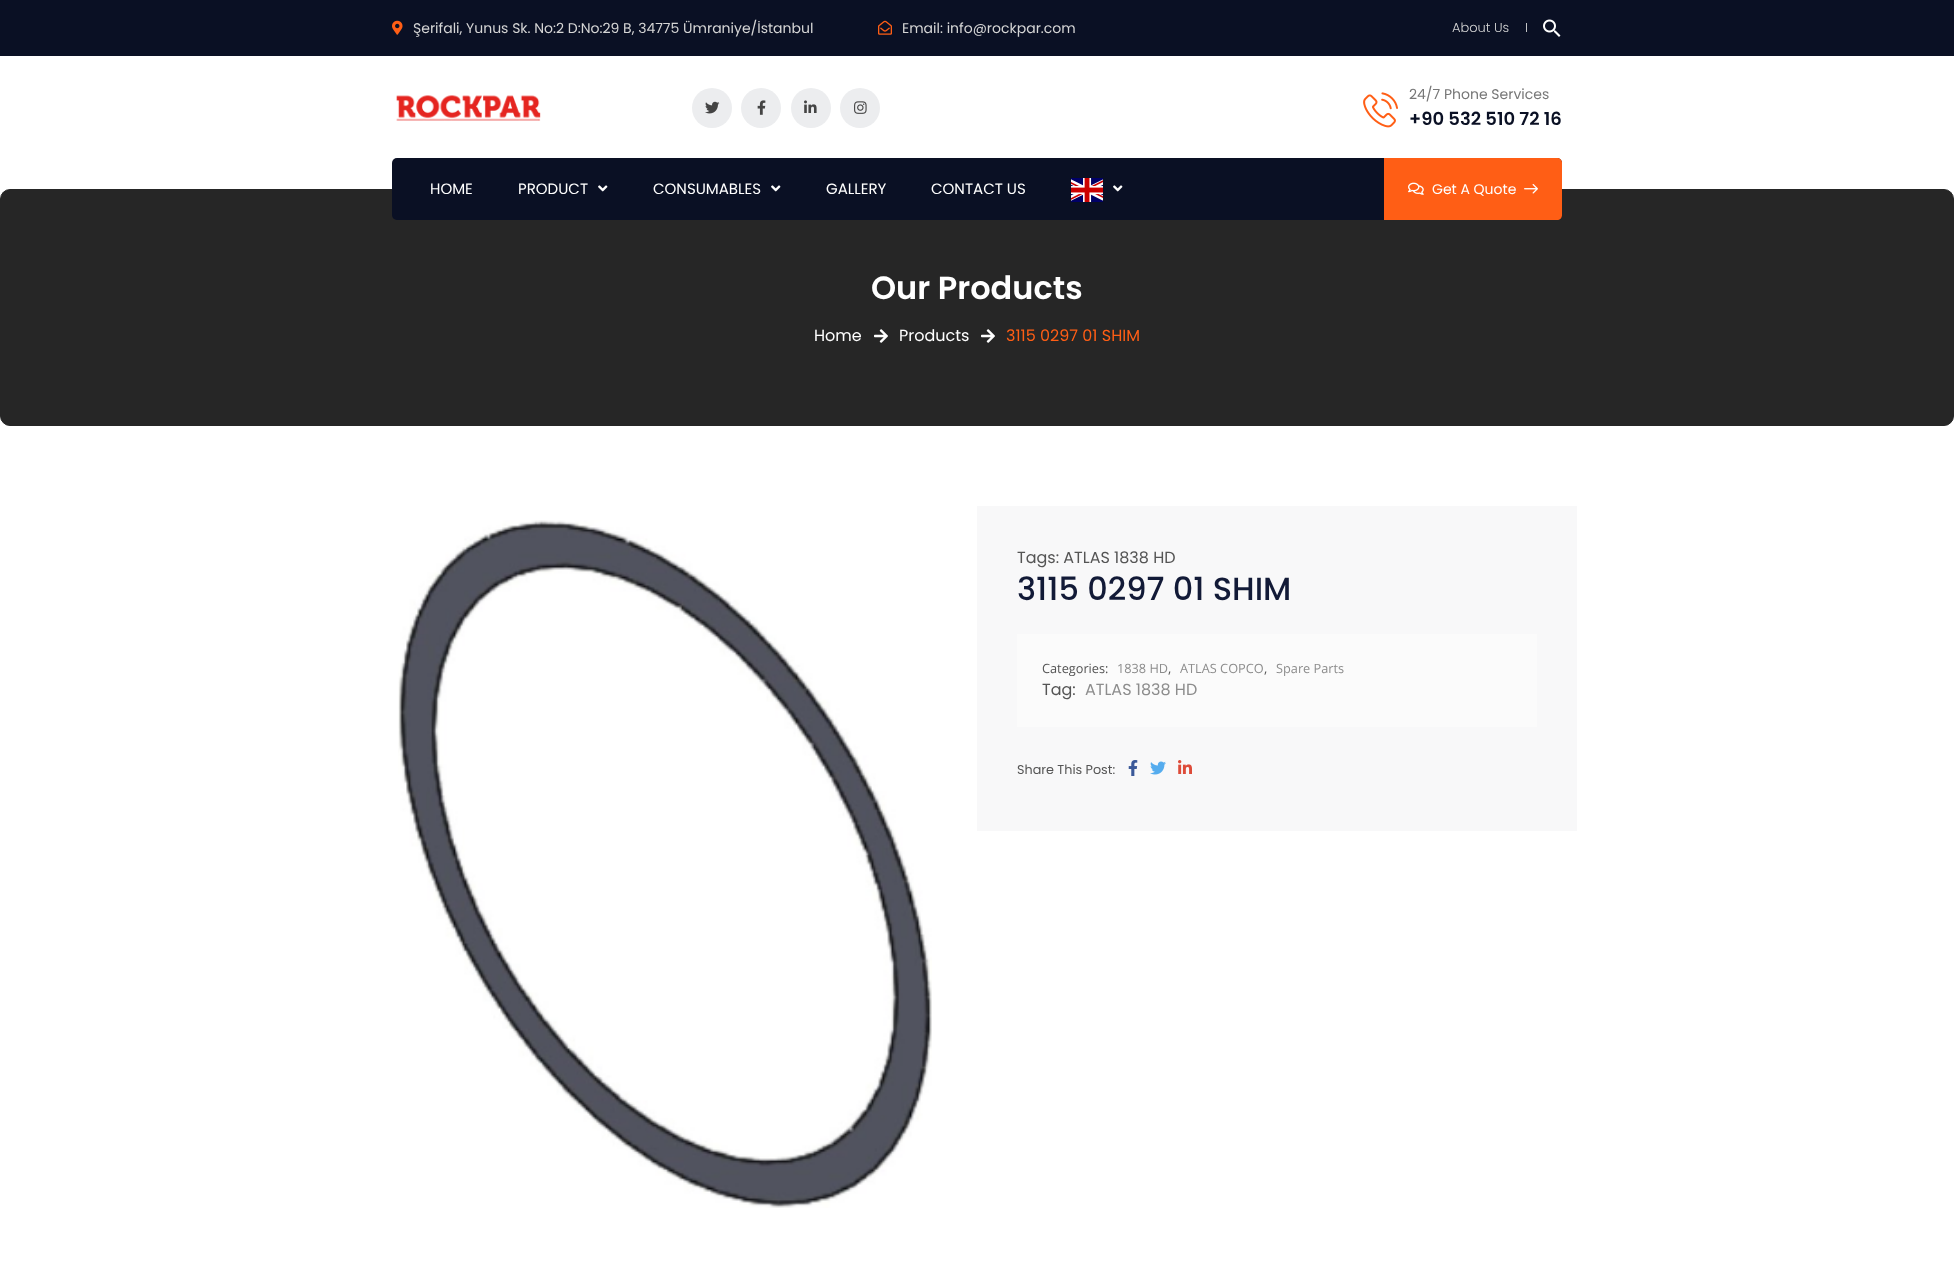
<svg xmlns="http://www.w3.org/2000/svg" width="1954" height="1277">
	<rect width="100%" height="100%" fill="#FFFFFF" />
	<rect x="0" y="0" width="1954" height="56" fill="#0A1024" />
	<image x="392" y="20" width="11" height="15" href="assets/img1.png" />
	<text x="413" y="33" font-family="Poppins" font-size="14" fill="#D5D5D5">Şerifali, Yunus Sk. No:2 D:No:29 B, 34775 Ümraniye/İstanbul</text>
	<image x="878" y="20" width="14" height="15" href="assets/img2.png" />
	<text x="902" y="33" font-family="Poppins" font-size="14" fill="#D5D5D5">Email: info@rockpar.com</text>
	<g font-family="Poppins" font-size="13" font-weight="300" fill="#D5D5D5">
		<text x="1452" y="32">About Us</text>
		<text x="1525" y="32">I</text>
	</g>
	<image x="1543" y="19" width="18" height="18" href="assets/img3.png" />
	<image x="396" y="95" width="145" height="26" href="assets/img4.png" />
	<circle cx="712" cy="108" r="20" fill="#ECEDEF" />
	<image x="705" y="101" width="15" height="13" href="assets/img5.png" />
	<circle cx="761" cy="108" r="20" fill="#ECEDEF" />
	<image x="757" y="100" width="9" height="15" href="assets/img6.png" />
	<circle cx="811" cy="108" r="20" fill="#ECEDEF" />
	<image x="804" y="100" width="13" height="13" href="assets/img7.png" />
	<circle cx="860" cy="108" r="20" fill="#ECEDEF" />
	<image x="854" y="101" width="13" height="13" href="assets/img8.png" />
	<image x="1363" y="92" width="35" height="36" href="assets/img9.png" />
	<text x="1409" y="99" font-family="Poppins" font-size="14" fill="#777777">24/7 Phone Services</text>
	<text x="1409" y="125" font-family="Poppins" font-size="18" font-weight="600" fill="#0A1024">+90 532 510 72 16</text>
	<rect x="0.5" y="189.5" width="1953" height="236" rx="9.5" fill="#262626" stroke="#262626" />
	<rect x="392" y="158" width="1170" height="62" rx="5" fill="#0A1024" />
	<g font-family="Poppins" font-size="15" fill="#FFFFFF">
		<text x="430" y="194">HOME</text>
		<text x="518" y="194">PRODUCT</text>
	</g>
	<image x="598" y="185" width="10" height="7" href="assets/img10.png" />
	<text x="653" y="194" font-family="Poppins" font-size="15" fill="#FFFFFF">CONSUMABLES</text>
	<image x="771" y="185" width="10" height="7" href="assets/img10.png" />
	<g font-family="Poppins" font-size="15" fill="#FFFFFF">
		<text x="826" y="194">GALLERY</text>
		<text x="931" y="194">CONTACT US</text>
	</g>
	<image x="1071" y="178" width="32" height="24" href="assets/img11.png" />
	<image x="1113" y="185" width="10" height="7" href="assets/img10.png" />
	<path d="M1384 158H1557C1560 158 1562 160 1562 163V215C1562 218 1560 220 1557 220H1384Z" fill="#FF5E15" />
	<image x="1408" y="182" width="16" height="13" href="assets/img12.png" />
	<text x="1432" y="194" font-family="Poppins" font-size="14" fill="#FFFFFF">Get A Quote</text>
	<image x="1524" y="184" width="14" height="10" href="assets/img13.png" />
	<text x="871" y="299" font-family="Poppins" font-size="32" font-weight="600" fill="#FFFFFF">Our Products</text>
	<text x="814" y="341" font-family="Poppins" font-size="16" fill="#FFFFFF">Home</text>
	<image x="874" y="329" width="14" height="14" href="assets/img14.png" />
	<text x="899" y="341" font-family="Poppins" font-size="16" fill="#FFFFFF">Products</text>
	<image x="981" y="329" width="14" height="14" href="assets/img14.png" />
	<text x="1006" y="341" font-family="Poppins" font-size="16" fill="#FF5E15">3115 0297 01 SHIM</text>
	<image x="398" y="520" width="534" height="688" href="assets/img15.png" />
	<rect x="977" y="506" width="600" height="325" fill="#F8F8F9" />
	<text x="1017" y="563" font-family="Poppins" font-size="16" fill="#555555">Tags: ATLAS 1838 HD</text>
	<text x="1017" y="600" font-family="Poppins" font-size="32" font-weight="500" fill="#121A37">3115 0297 01 SHIM</text>
	<rect x="1017" y="634" width="520" height="93" fill="#FBFBFB" />
	<text x="1042" y="673" font-family="Open Sans" font-size="12.75" fill="#555555">Categories:</text>
	<text x="1117" y="673" font-family="Open Sans" font-size="12.75" fill="#8D8D8D">1838 HD</text>
	<text x="1168" y="673" font-family="Open Sans" font-size="12.75" fill="#555555">,</text>
	<text x="1180" y="673" font-family="Open Sans" font-size="12.75" fill="#8D8D8D">ATLAS COPCO</text>
	<text x="1264" y="673" font-family="Open Sans" font-size="12.75" fill="#555555">,</text>
	<text x="1276" y="673" font-family="Open Sans" font-size="12.75" fill="#8D8D8D">Spare Parts</text>
	<text x="1042" y="695" font-family="Poppins" font-size="16" fill="#555555">Tag:</text>
	<text x="1085" y="695" font-family="Poppins" font-size="16" fill="#8D8D8D">ATLAS 1838 HD</text>
	<text x="1017" y="774" font-family="Poppins" font-size="12.75" fill="#555555">Share This Post:</text>
	<image x="1128" y="760" width="10" height="16" href="assets/img16.png" />
	<image x="1150" y="761" width="16" height="14" href="assets/img17.png" />
	<image x="1178" y="760" width="14" height="14" href="assets/img18.png" />
</svg>
